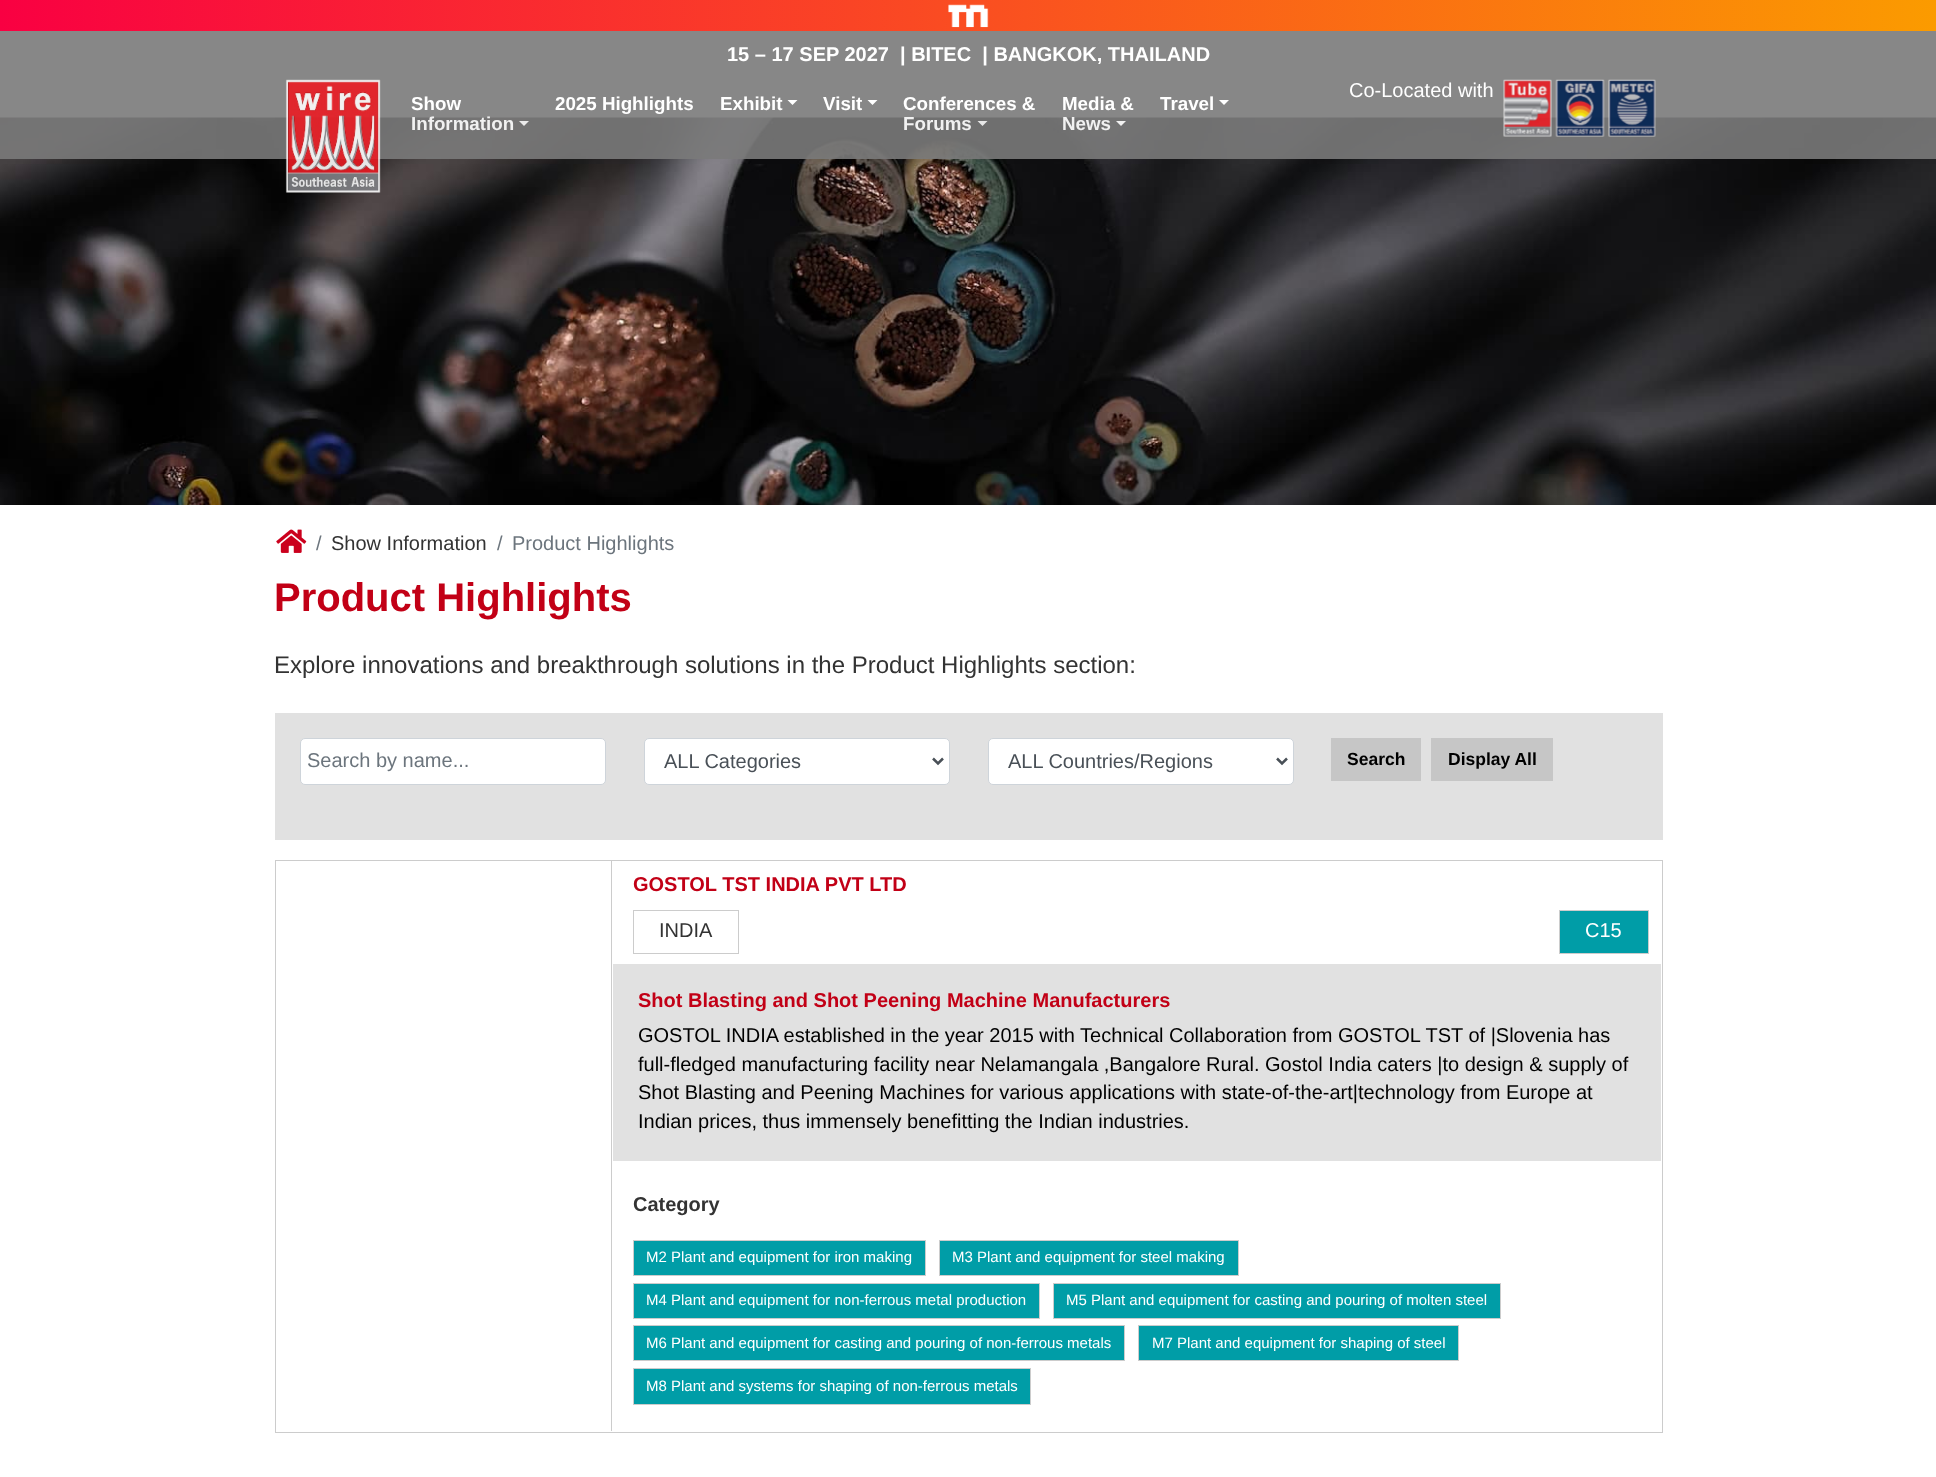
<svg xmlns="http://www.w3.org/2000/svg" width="1936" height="1477">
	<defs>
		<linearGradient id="g1" gradientUnits="userSpaceOnUse" x1="0" y1="16" x2="1936" y2="16"><stop offset="0" stop-color="#F90042" /><stop offset="1" stop-color="#FB9B00" /></linearGradient>
	</defs>
	<rect width="100%" height="100%" fill="#FFFFFF" />
	<rect x="0" y="0" width="1936" height="31" fill="url(#g1)" />
	<image x="948" y="4" width="41" height="24" href="assets/img1.png" />
	<image x="0" y="117" width="1936" height="388" href="assets/img6.png" />
	<rect x="0" y="31" width="1936" height="128" fill="#7A7A7A" fill-opacity="0.9" />
	<g font-family="Liberation Sans" font-size="20" font-weight="700" fill="#FFFFFF">
		<text x="727" y="61">15 – 17 SEP 2027</text>
		<text x="900" y="61" xml:space="preserve">| BITEC  | BANGKOK, THAILAND</text>
	</g>
	<text x="1349" y="97" font-family="Liberation Sans" font-size="20" fill="#FFFFFF">Co-Located with</text>
	<image x="1503" y="79" width="49" height="58" href="assets/img2.png" />
	<image x="1555" y="79" width="50" height="58" href="assets/img3.png" />
	<image x="1608" y="79" width="48" height="58" href="assets/img4.png" />
	<image x="285" y="79" width="96" height="114" href="assets/img5.png" />
	<text x="411" y="110" font-family="Liberation Sans" font-size="18.75" font-weight="700" fill="#FFFFFF">Show</text>
	<text x="411" y="130" font-family="Liberation Sans" font-size="18.75" font-weight="700" fill="#F1F1F1">Information</text>
	<path d="M519 121H529L524 126Z" fill="#EBEBEB" />
	<g font-family="Liberation Sans" font-size="18.75" font-weight="700" fill="#FFFFFF">
		<text x="555" y="110">2025 Highlights</text>
		<text x="720" y="110">Exhibit</text>
	</g>
	<path d="M787.5 100H797.5L792.5 105Z" fill="#FFFFFF" />
	<text x="823" y="110" font-family="Liberation Sans" font-size="18.75" font-weight="700" fill="#FFFFFF">Visit</text>
	<path d="M867.5 100H877.5L872.5 105Z" fill="#FFFFFF" />
	<text x="903" y="110" font-family="Liberation Sans" font-size="18.75" font-weight="700" fill="#FFFFFF">Conferences &amp;</text>
	<text x="903" y="130" font-family="Liberation Sans" font-size="18.75" font-weight="700" fill="#F1F1F1">Forums</text>
	<path d="M977.5 121H987.5L982.5 126Z" fill="#E7E7E7" />
	<text x="1062" y="110" font-family="Liberation Sans" font-size="18.75" font-weight="700" fill="#FFFFFF">Media &amp;</text>
	<text x="1062" y="130" font-family="Liberation Sans" font-size="18.75" font-weight="700" fill="#F1F1F1">News</text>
	<path d="M1116 121H1126L1121 126Z" fill="#F1F1F1" />
	<text x="1160" y="110" font-family="Liberation Sans" font-size="18.75" font-weight="700" fill="#FFFFFF">Travel</text>
	<path d="M1219 100H1229L1224 105Z" fill="#FFFFFF" />
	<image x="276" y="529" width="31" height="24" href="assets/img7.png" />
	<text x="316" y="550" font-family="Liberation Sans" font-size="20" fill="#6C757D">/</text>
	<text x="331" y="550" font-family="Liberation Sans" font-size="20" fill="#333333">Show Information</text>
	<g font-family="Liberation Sans" font-size="20" fill="#6C757D">
		<text x="497" y="550">/</text>
		<text x="512" y="550">Product Highlights</text>
	</g>
	<text x="274" y="611" font-family="Liberation Sans" font-size="40" font-weight="700" fill="#C20016">Product Highlights</text>
	<text x="274" y="673" font-family="Liberation Sans" font-size="24" fill="#333333">Explore innovations and breakthrough solutions in the Product Highlights section:</text>
	<rect x="275" y="713" width="1388" height="127" fill="#E1E1E1" />
	<rect x="300.5" y="738.5" width="305" height="46" rx="4.5" fill="#FFFFFF" stroke="#CED4DA" />
	<text x="307" y="767" font-family="Liberation Sans" font-size="20" fill="#6C757D">Search by name...</text>
	<rect x="644.5" y="738.5" width="305" height="46" rx="4.5" fill="#FFFFFF" stroke="#CED4DA" />
	<path d="M933 758.5L938 763.5L943 758.5" fill="none" stroke="#495057" stroke-width="2.5" />
	<text x="664" y="768" font-family="Liberation Sans" font-size="20" fill="#495057">ALL Categories</text>
	<rect x="988.5" y="738.5" width="305" height="46" rx="4.5" fill="#FFFFFF" stroke="#CED4DA" />
	<path d="M1277 758.5L1282 763.5L1287 758.5" fill="none" stroke="#495057" stroke-width="2.5" />
	<text x="1008" y="768" font-family="Liberation Sans" font-size="20" fill="#495057">ALL Countries/Regions</text>
	<rect x="1331" y="738" width="90" height="43" fill="#C6C6C6" />
	<text x="1347" y="765" font-family="Liberation Sans" font-size="17.5" font-weight="700" fill="#000000">Search</text>
	<rect x="1431" y="738" width="122" height="43" fill="#C6C6C6" />
	<text x="1448" y="765" font-family="Liberation Sans" font-size="17.5" font-weight="700" fill="#000000">Display All</text>
	<rect x="275.5" y="860.5" width="1387" height="572" fill="none" stroke="#CCCCCC" />
	<rect x="611" y="861" width="1" height="570" fill="#CCCCCC" />
	<text x="633" y="891" font-family="Liberation Sans" font-size="20" font-weight="700" fill="#C20016">GOSTOL TST INDIA PVT LTD</text>
	<rect x="633.5" y="910.5" width="105" height="43" fill="none" stroke="#CCCCCC" />
	<text x="659" y="937" font-family="Liberation Sans" font-size="20" fill="#333333">INDIA</text>
	<rect x="1559.5" y="910.5" width="89" height="43" fill="#009DA7" stroke="#CCCCCC" />
	<text x="1585" y="937" font-family="Liberation Sans" font-size="20" fill="#FFFFFF">C15</text>
	<rect x="613" y="964" width="1048" height="197" fill="#E1E1E1" />
	<text x="638" y="1007" font-family="Liberation Sans" font-size="20" font-weight="700" fill="#C20016">Shot Blasting and Shot Peening Machine Manufacturers</text>
	<g font-family="Liberation Sans" font-size="20" fill="#000000">
		<text x="638" y="1042">GOSTOL INDIA established in the year 2015 with Technical Collaboration from GOSTOL TST of |Slovenia has</text>
		<text x="638" y="1071">full-fledged manufacturing facility near Nelamangala ,Bangalore Rural. Gostol India caters |to design &amp; supply of</text>
		<text x="638" y="1099">Shot Blasting and Peening Machines for various applications with state-of-the-art|technology from Europe at</text>
		<text x="638" y="1128">Indian prices, thus immensely benefitting the Indian industries.</text>
	</g>
	<text x="633" y="1211" font-family="Liberation Sans" font-size="20" font-weight="700" fill="#333333">Category</text>
	<rect x="633.5" y="1240.5" width="292" height="35" fill="#009DA7" stroke="#CCCCCC" />
	<text x="646" y="1262" font-family="Liberation Sans" font-size="15" fill="#FFFFFF">M2 Plant and equipment for iron making</text>
	<rect x="939.5" y="1240.5" width="299" height="35" fill="#009DA7" stroke="#CCCCCC" />
	<text x="952" y="1262" font-family="Liberation Sans" font-size="15" fill="#FFFFFF">M3 Plant and equipment for steel making</text>
	<rect x="633.5" y="1283.5" width="406" height="35" fill="#009DA7" stroke="#CCCCCC" />
	<text x="646" y="1305" font-family="Liberation Sans" font-size="15" fill="#FFFFFF">M4 Plant and equipment for non-ferrous metal production</text>
	<rect x="1053.5" y="1283.5" width="447" height="35" fill="#009DA7" stroke="#CCCCCC" />
	<text x="1066" y="1305" font-family="Liberation Sans" font-size="15" fill="#FFFFFF">M5 Plant and equipment for casting and pouring of molten steel</text>
	<rect x="633.5" y="1325.5" width="491" height="35" fill="#009DA7" stroke="#CCCCCC" />
	<text x="646" y="1348" font-family="Liberation Sans" font-size="15" fill="#FFFFFF">M6 Plant and equipment for casting and pouring of non-ferrous metals</text>
	<rect x="1138.5" y="1325.5" width="320" height="35" fill="#009DA7" stroke="#CCCCCC" />
	<text x="1152" y="1348" font-family="Liberation Sans" font-size="15" fill="#FFFFFF">M7 Plant and equipment for shaping of steel</text>
	<rect x="633.5" y="1368.5" width="397" height="36" fill="#009DA7" stroke="#CCCCCC" />
	<text x="646" y="1391" font-family="Liberation Sans" font-size="15" fill="#FFFFFF">M8 Plant and systems for shaping of non-ferrous metals</text>
</svg>
